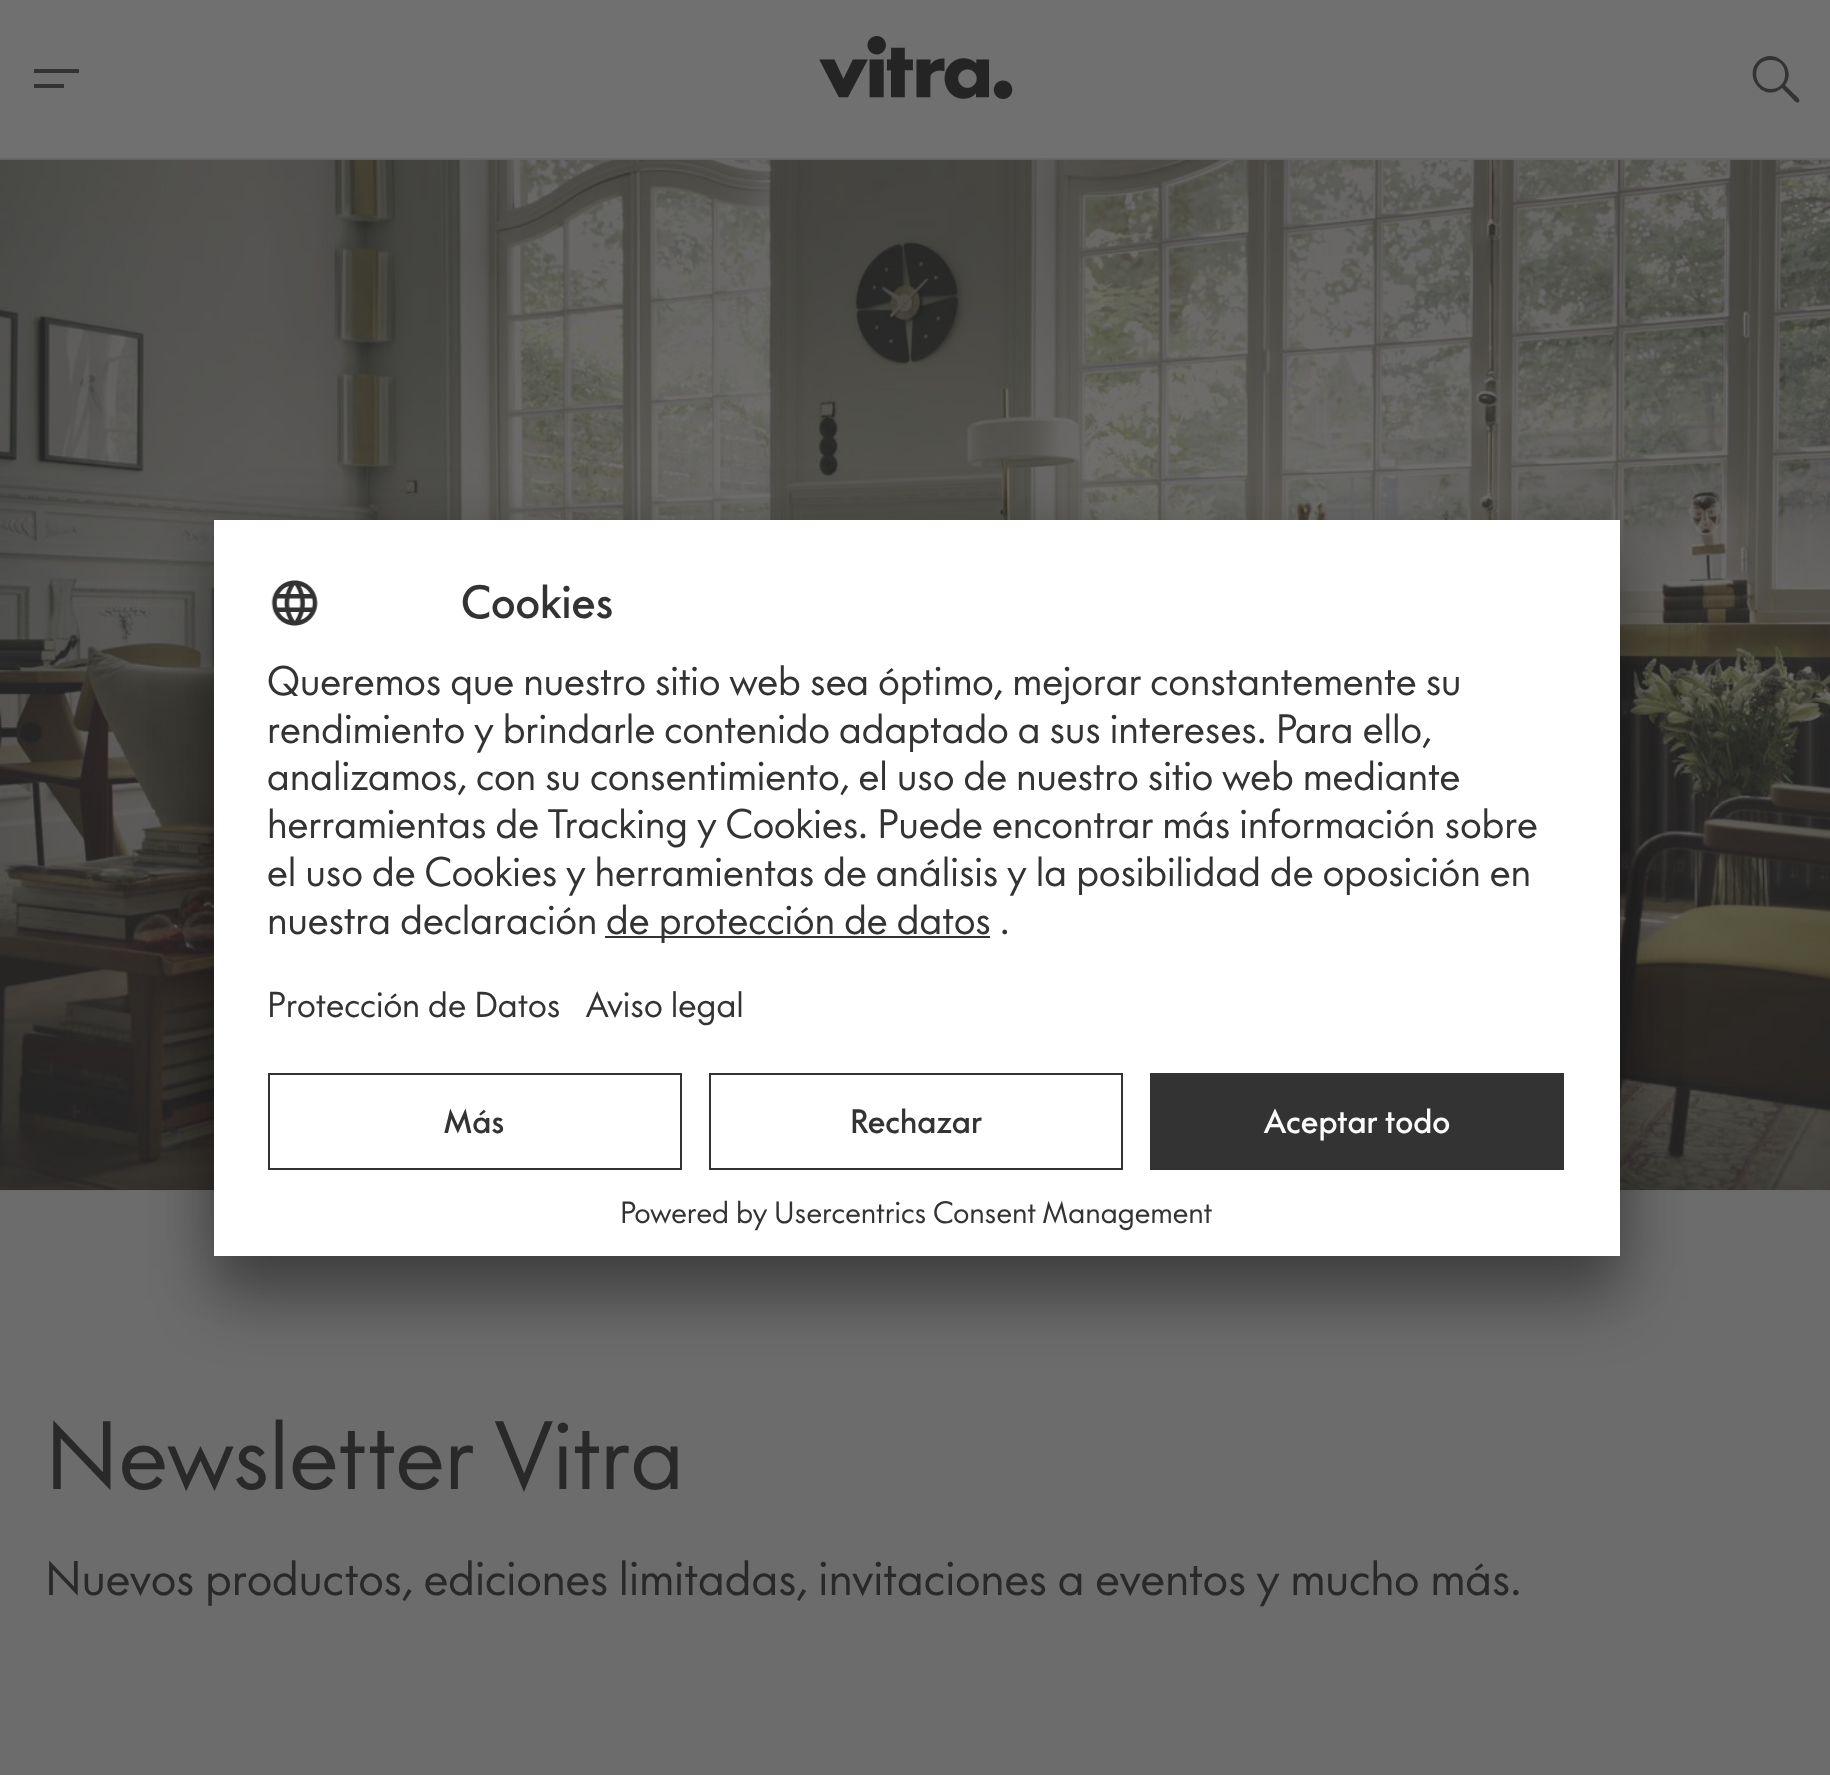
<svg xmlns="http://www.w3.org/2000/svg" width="1830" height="1775">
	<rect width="100%" height="100%" fill="#707070" />
	<rect x="0" y="158" width="1830" height="2" fill="#666666" />
	<rect x="0" y="1190" width="1830" height="585" fill="#6C6C6C" />
	<image x="0" y="159" width="1830" height="1032" href="assets/img3.png" />
	<rect x="214" y="565" width="1406" height="736" fill="#000000" fill-opacity="0.3" filter="blur(31.5px)" />
	<rect x="214" y="531" width="1406" height="736" fill="#000000" fill-opacity="0.22" filter="blur(29px)" />
	<rect x="214" y="520" width="1406" height="736" fill="#FFFFFF" />
	<image x="271" y="580" width="47" height="46" href="assets/img1.png" />
	<text x="461" y="618" font-family="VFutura" font-size="43" font-weight="500" fill="#333333">Cookies</text>
	<g font-family="VFutura" font-size="38.25" fill="#333333">
		<text x="267" y="695">Queremos que nuestro sitio web sea óptimo, mejorar constantemente su</text>
		<text x="267" y="743">rendimiento y brindarle contenido adaptado a sus intereses. Para ello,</text>
		<text x="267" y="790">analizamos, con su consentimiento, el uso de nuestro sitio web mediante</text>
		<text x="267" y="838">herramientas de Tracking y Cookies. Puede encontrar más información sobre</text>
		<text x="267" y="886">el uso de Cookies y herramientas de análisis y la posibilidad de oposición en</text>
		<text x="267" y="934">nuestra declaración</text>
	</g>
	<rect x="605" y="936" width="385" height="2" fill="#333333" />
	<text x="606" y="934" font-family="VFutura" font-size="38.25" fill="#333333">de protección de datos .</text>
	<g font-family="VFutura" font-size="33.5" fill="#333333">
		<text x="267" y="1017">Protección de Datos</text>
		<text x="586" y="1017">Aviso legal</text>
	</g>
	<rect x="269" y="1074" width="412" height="95" fill="none" stroke="#333333" stroke-width="2" />
	<text x="444" y="1133" font-family="VFutura" font-size="31.5" font-weight="500" fill="#333333">Más</text>
	<rect x="710" y="1074" width="412" height="95" fill="none" stroke="#333333" stroke-width="2" />
	<text x="850" y="1133" font-family="VFutura" font-size="31.5" font-weight="500" fill="#333333">Rechazar</text>
	<rect x="1150" y="1073" width="414" height="97" fill="#333333" />
	<text x="1264" y="1133" font-family="VFutura" font-size="31.5" font-weight="500" fill="#FAFAFA">Aceptar todo</text>
	<text x="620" y="1223" font-family="VFutura" font-size="28.7" fill="#333333">Powered by Usercentrics Consent Management</text>
	<path d="M34 69H79V73H34ZM34 84H64V88H34Z" fill="#333333" />
	<image x="819" y="36" width="194" height="63" href="assets/img2.png" />
	<path d="M1799 102C1801 99 1795 95 1794 94L1785 85C1798 68 1774 46 1758 61C1742 77 1765 103 1782 88L1791 97C1792 98 1796 104 1799 102ZM1771 89C1752 89 1751 60 1770 60C1790 59 1790 89 1771 89Z" fill="#333333" />
	<text x="45" y="1489" font-family="VFutura" font-size="90" fill="#292929">Newsletter Vitra</text>
	<text x="45" y="1595" font-family="VFutura" font-size="45" fill="#292929">Nuevos productos, ediciones limitadas, invitaciones a eventos y mucho más.</text>
</svg>
